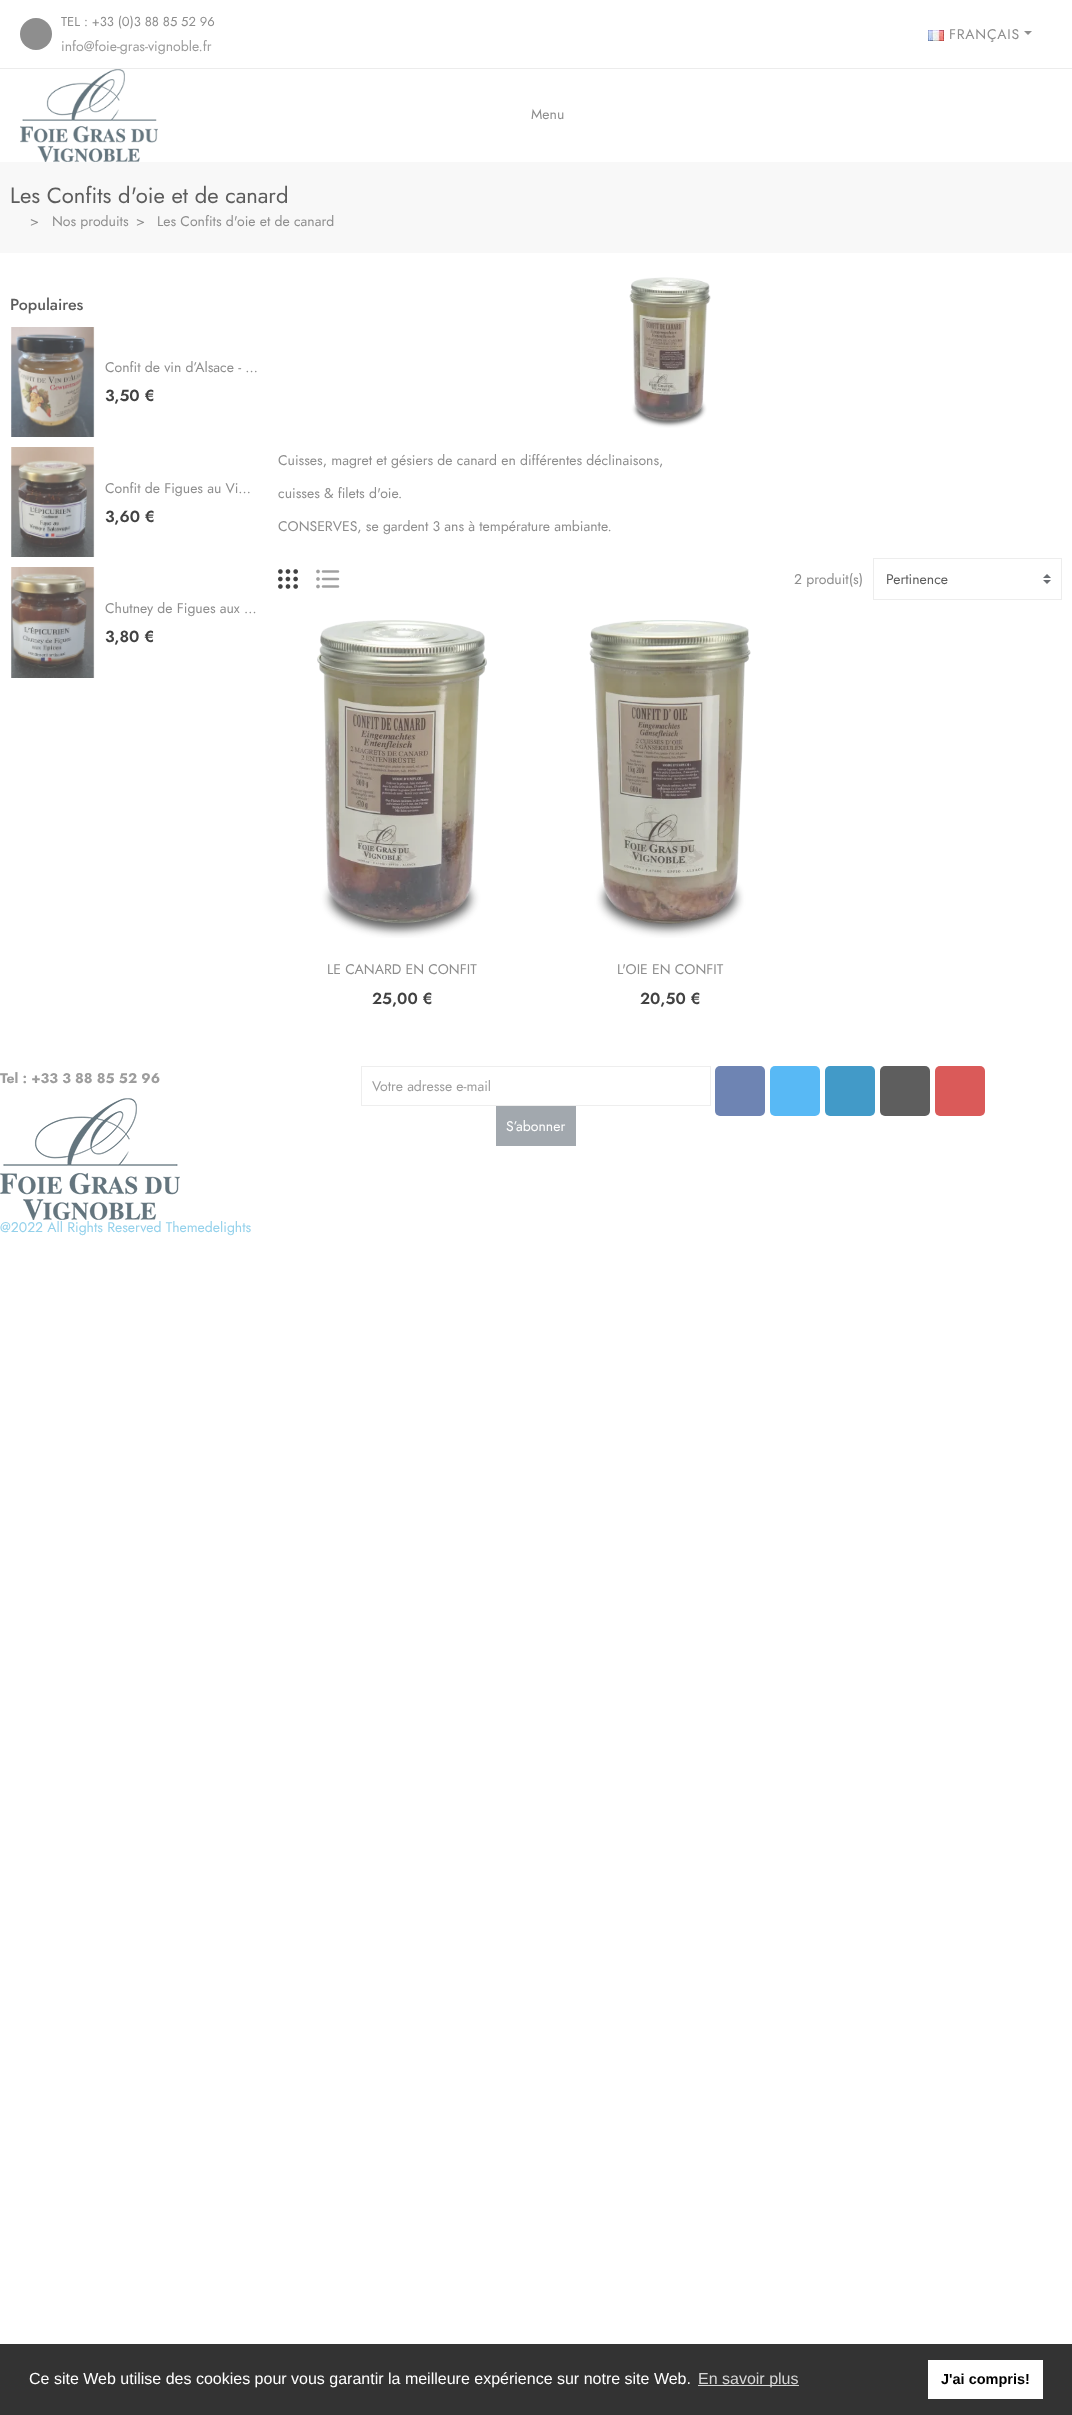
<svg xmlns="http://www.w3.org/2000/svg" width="1072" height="2415">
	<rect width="100%" height="100%" fill="#FFFFFF" />
	<rect x="0" y="68" width="1072" height="1" fill="#ECECEC" />
	<circle cx="36" cy="34" r="16" fill="#8E8E8E" />
	<text x="61" y="26" font-family="Jost" font-size="13" fill="#8E8E8E">TEL : +33 (0)3 88 85 52 96</text>
	<text x="61" y="51" font-family="Jost" font-size="14" fill="#9D9D9D">info@foie-gras-vignoble.fr</text>
	<image x="928" y="30" width="16" height="11" href="assets/img1.png" />
	<text x="949" y="39" font-family="Jost" font-size="14" letter-spacing="0.75" fill="#8E8E8E">FRANÇAIS</text>
	<path d="M1024 31H1032L1028 35Z" fill="#8E8E8E" />
	<image x="20" y="69" width="138" height="93" href="assets/img2.png" />
	<text x="531" y="119" font-family="Jost" font-size="14" fill="#8E8E8E">Menu</text>
	<rect x="0" y="162" width="1072" height="91" fill="#F8F8F8" />
	<text x="10" y="203" font-family="Jost" font-size="22" fill="#5C5C5C">Les Confits d'oie et de canard</text>
	<g font-family="Jost" font-size="14" fill="#8E8E8E">
		<text x="30" y="226">&gt;</text>
		<text x="52" y="226">Nos produits</text>
		<text x="136" y="226">&gt;</text>
		<text x="157" y="226">Les Confits d'oie et de canard</text>
	</g>
	<text x="10" y="310" font-family="Jost" font-size="16" font-weight="500" fill="#5C5C5C">Populaires</text>
	<image x="11" y="327" width="84" height="110" href="assets/img3.png" />
	<text x="105" y="372" font-family="Jost" font-size="14" fill="#8E8E8E">Confit de vin d’Alsace - …</text>
	<text x="105" y="401" font-family="Jost" font-size="16" font-weight="600" fill="#424242">3,50 €</text>
	<image x="11" y="447" width="84" height="110" href="assets/img4.png" />
	<text x="105" y="493" font-family="Jost" font-size="14" fill="#8E8E8E">Confit de Figues au Vi…</text>
	<text x="105" y="522" font-family="Jost" font-size="16" font-weight="600" fill="#424242">3,60 €</text>
	<image x="11" y="567" width="84" height="111" href="assets/img5.png" />
	<text x="105" y="613" font-family="Jost" font-size="14" fill="#8E8E8E">Chutney de Figues aux …</text>
	<text x="105" y="642" font-family="Jost" font-size="16" font-weight="600" fill="#424242">3,80 €</text>
	<image x="629" y="277" width="82" height="151" href="assets/img6.png" />
	<g font-family="Jost" font-size="14" fill="#8E8E8E">
		<text x="278" y="465">Cuisses, magret et gésiers de canard en différentes déclinaisons,</text>
		<text x="278" y="498">cuisses &amp; filets d'oie.</text>
		<text x="278" y="531">CONSERVES, se gardent 3 ans à température ambiante.</text>
	</g>
	<image x="278" y="569" width="20" height="20" href="assets/img7.png" />
	<image x="316" y="569" width="24" height="20" href="assets/img8.png" />
	<text x="794" y="584" font-family="Jost" font-size="14" fill="#8E8E8E">2 produit(s)</text>
	<image x="1043" y="574" width="8" height="10" href="assets/img9.png" />
	<rect x="873.5" y="558.5" width="188" height="41" fill="none" stroke="#EDEDED" />
	<text x="886" y="584" font-family="Jost" font-size="14" fill="#5C5C5C">Pertinence</text>
	<image x="317" y="620" width="170" height="318" href="assets/img10.png" />
	<text x="327" y="974" font-family="Jost" font-size="14" fill="#8E8E8E">LE CANARD EN CONFIT</text>
	<text x="372" y="1004" font-family="Jost" font-size="16" font-weight="600" fill="#424242">25,00 €</text>
	<image x="589" y="620" width="162" height="318" href="assets/img11.png" />
	<text x="617" y="974" font-family="Jost" font-size="14" fill="#8E8E8E">L'OIE EN CONFIT</text>
	<text x="640" y="1004" font-family="Jost" font-size="16" font-weight="600" fill="#424242">20,50 €</text>
	<text x="0" y="1083" font-family="Jost" font-size="14" font-weight="700" fill="#9D9D9D">Tel : +33 3 88 85 52 96</text>
	<image x="0" y="1098" width="180" height="122" href="assets/img12.png" />
	<rect x="715" y="1066" width="50" height="50" rx="5" fill="#6E84B3" />
	<rect x="770" y="1066" width="50" height="50" rx="5" fill="#58B9F5" />
	<rect x="825" y="1066" width="50" height="50" rx="5" fill="#429AC8" />
	<rect x="880" y="1066" width="50" height="50" rx="5" fill="#5E5E5E" />
	<rect x="935" y="1066" width="50" height="50" rx="5" fill="#DA5A59" />
	<rect x="361.5" y="1066.5" width="349" height="39" fill="none" stroke="#EEEEEE" />
	<text x="372" y="1091" font-family="Jost" font-size="14" fill="#9D9D9D">Votre adresse e-mail</text>
	<rect x="496" y="1106" width="80" height="40" fill="#A2A8AE" />
	<text x="506" y="1131" font-family="Jost" font-size="14" fill="#FFFFFF">S’abonner</text>
	<text x="0" y="1232" font-family="Jost" font-size="14" fill="#94D1EB">@2022 All Rights Reserved Themedelights</text>
	<rect x="0" y="2344" width="1072" height="71" fill="#333333" />
	<text x="29" y="2384" font-family="Liberation Sans" font-size="16" fill="#FFFFFF">Ce site Web utilise des cookies pour vous garantir la meilleure expérience sur notre site Web.</text>
	<rect x="698" y="2385" width="101" height="1" fill="#D6D6D6" />
	<text x="698" y="2384" font-family="Liberation Sans" font-size="16" fill="#D6D6D6">En savoir plus</text>
	<rect x="928" y="2360" width="115" height="39" fill="#FFFFFF" />
	<text x="941" y="2384" font-family="Liberation Sans" font-size="14.5" font-weight="700" fill="#000000">J'ai compris!</text>
</svg>
